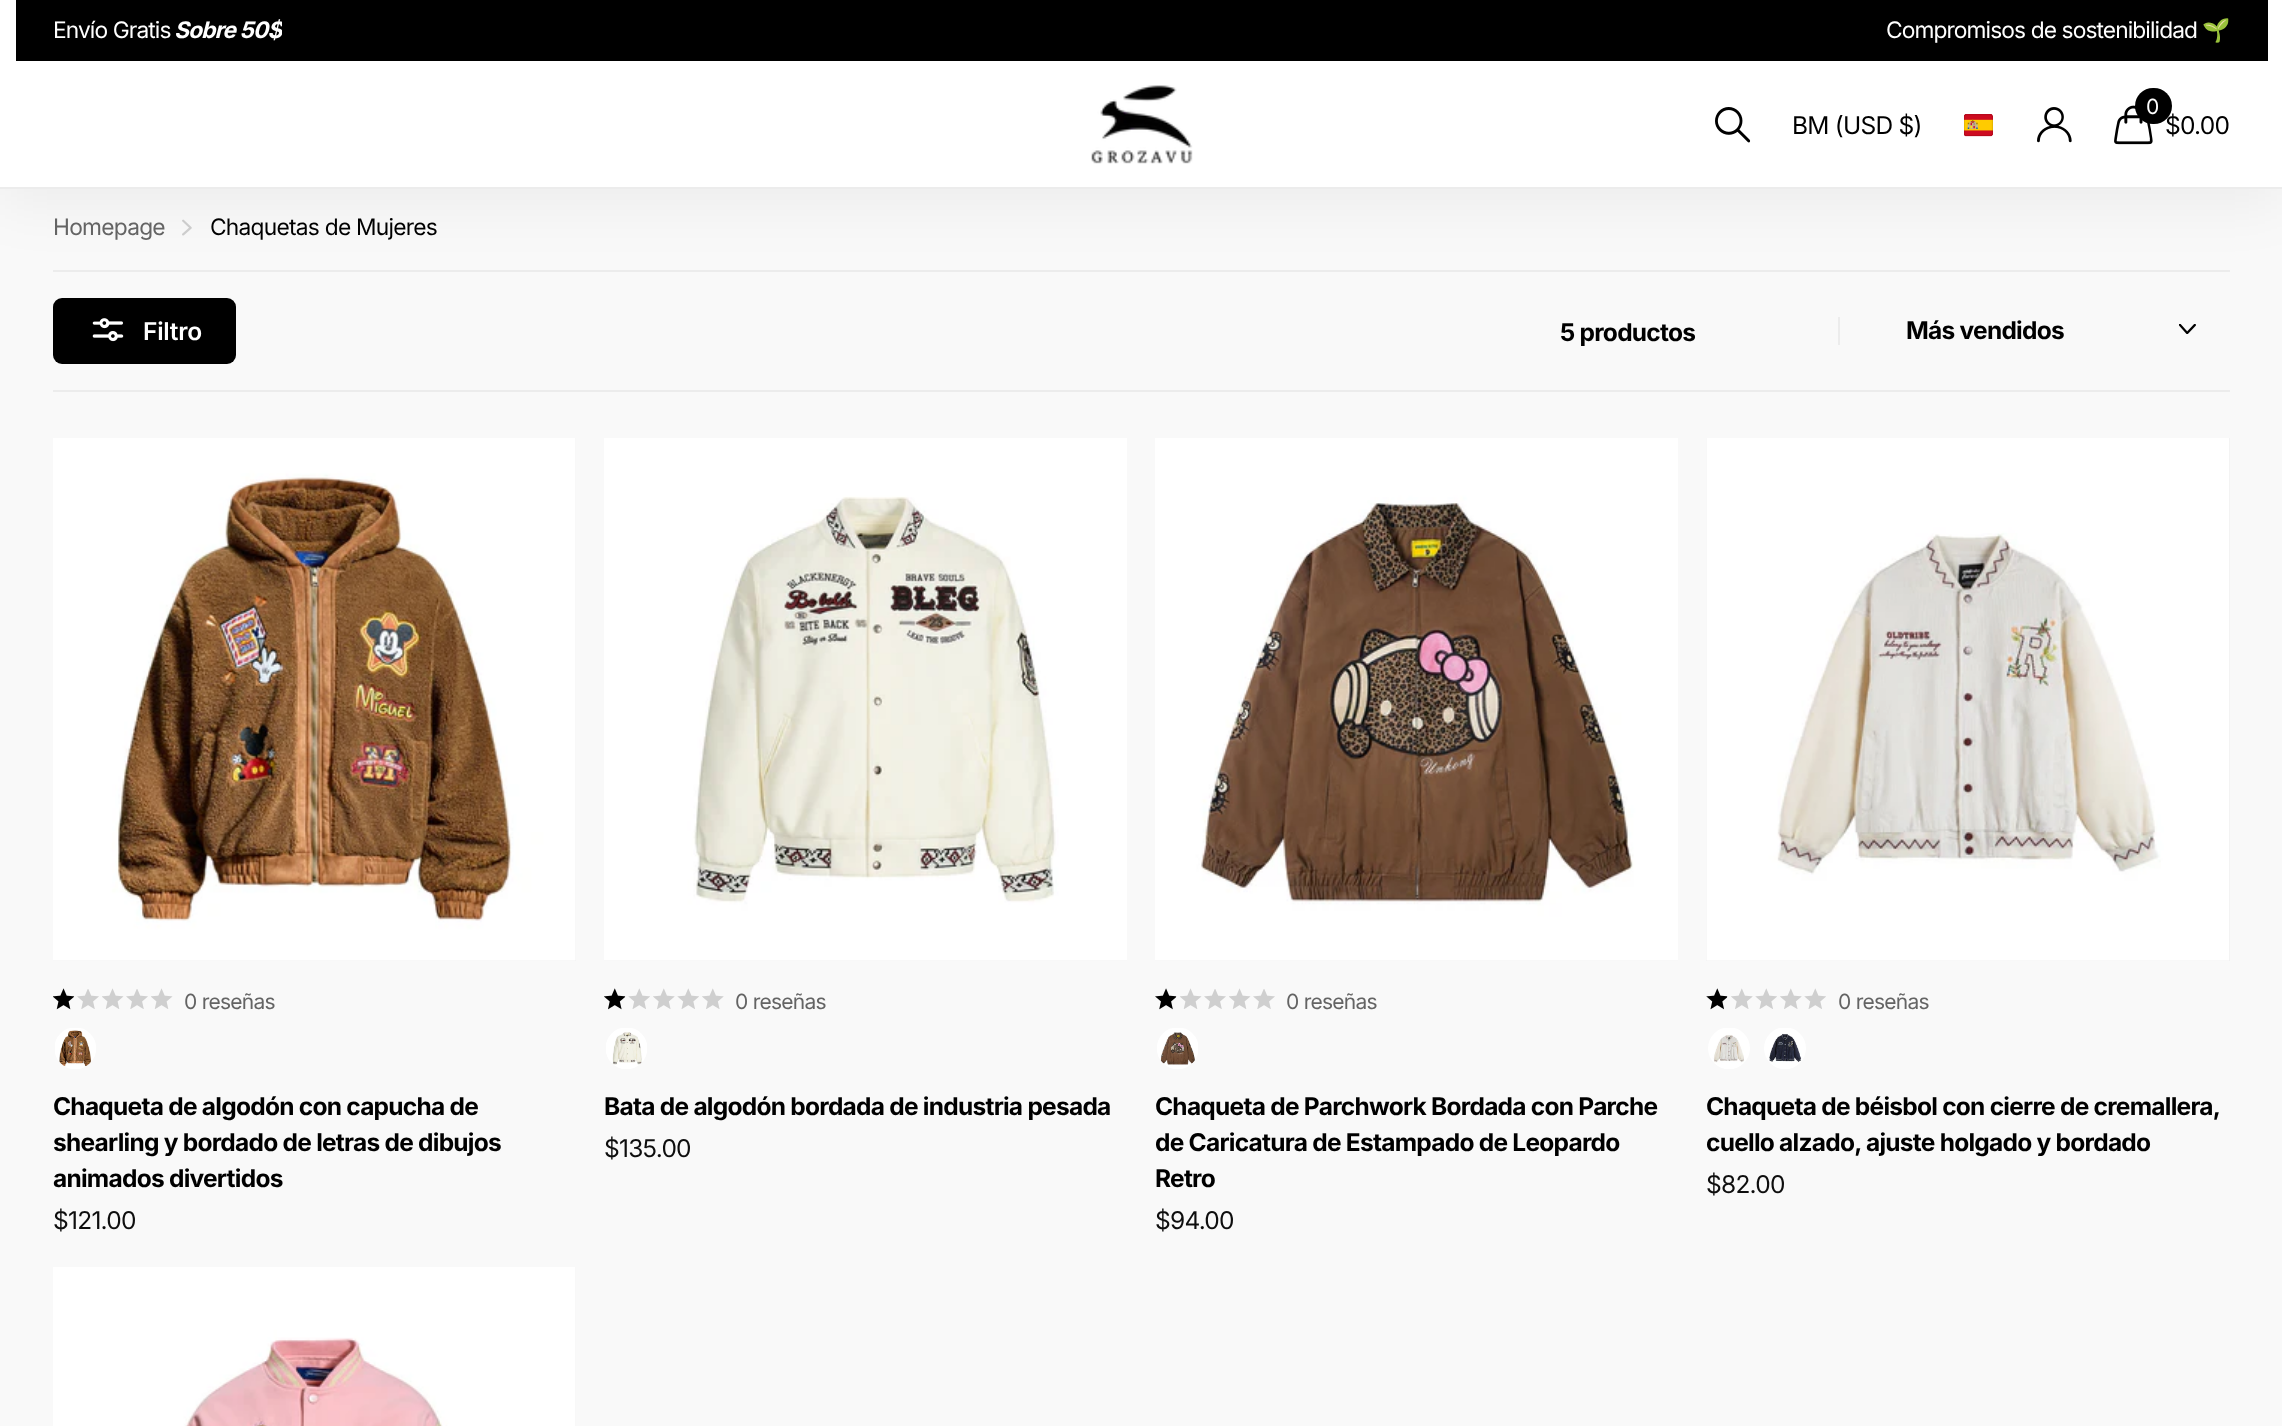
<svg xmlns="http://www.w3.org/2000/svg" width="2282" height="1426">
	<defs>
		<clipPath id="clip1"><rect x="53" y="11" width="229" height="40" /></clipPath>
	</defs>
	<rect width="100%" height="100%" fill="#F9F9F9" />
	<image x="182" y="219" width="10" height="17" href="assets/img6.png" />
	<rect x="53" y="270" width="2177" height="2" fill="#ECECEC" />
	<rect x="0" y="16" width="2282" height="189" fill="#000000" fill-opacity="0.05" filter="blur(28px)" />
	<rect x="0" y="0" width="2282" height="187" fill="#FFFFFF" />
	<rect x="0" y="187" width="2282" height="2" fill="#ECECEC" />
	<rect x="16" y="0" width="2252" height="61" fill="#000000" />
	<text x="53" y="38" font-family="Inter" font-size="22.75" letter-spacing="-0.9" fill="#FFFFFF">Envío Gratis</text>
	<g clip-path="url(#clip1)">
		<text x="174" y="38" font-family="Inter" font-size="22.75" font-weight="700" font-style="italic" letter-spacing="-0.9" fill="#FFFFFF">Sobre 50$</text>
	</g>
	<text x="1886" y="38" font-family="Inter" font-size="22.75" letter-spacing="-0.9" fill="#FFFFFF">Compromisos de sostenibilidad</text>
	<text x="2202" y="38" font-family="Noto Color Emoji" font-size="22.75" letter-spacing="-0.9" fill="#FFFFFF">🌱</text>
	<image x="1091" y="85" width="102" height="79" href="assets/img1.png" />
	<image x="1715" y="107" width="36" height="36" href="assets/img2.png" />
	<text x="1792" y="134" font-family="Inter" font-size="24.5" letter-spacing="-0.75" fill="#000000">BM (USD $)</text>
	<image x="1964" y="114" width="29" height="23" href="assets/img3.png" />
	<image x="2037" y="107" width="35" height="36" href="assets/img4.png" />
	<image x="2114" y="105" width="39" height="40" href="assets/img5.png" />
	<rect x="2135" y="88" width="37" height="36" rx="18" fill="#000000" />
	<text x="2146" y="114" font-family="Inter" font-size="21" letter-spacing="-1" fill="#FFFFFF">0</text>
	<text x="2165" y="134" font-family="Inter" font-size="24.5" letter-spacing="-0.75" fill="#000000">$0.00</text>
	<text x="53" y="235" font-family="Inter" font-size="22.75" letter-spacing="-0.75" fill="#646464">Homepage</text>
	<text x="210" y="235" font-family="Inter" font-size="22.75" letter-spacing="-0.75" fill="#000000">Chaquetas de Mujeres</text>
	<rect x="53" y="390" width="2177" height="2" fill="#ECECEC" />
	<rect x="53" y="298" width="183" height="66" rx="9" fill="#000000" />
	<image x="92" y="318" width="32" height="24" href="assets/img7.png" />
	<text x="143" y="340" font-family="Inter" font-size="24.5" font-weight="600" letter-spacing="-0.25" fill="#FFFFFF">Filtro</text>
	<text x="1560" y="341" font-family="Inter" font-size="24.5" font-weight="700" letter-spacing="-0.75" fill="#000000">5 productos</text>
	<rect x="1838" y="317" width="2" height="28" fill="#ECECEC" />
	<image x="2179" y="324" width="17" height="10" href="assets/img8.png" />
	<text x="1906" y="339" font-family="Inter" font-size="24.5" font-weight="700" letter-spacing="-0.75" fill="#000000">Más vendidos</text>
	<rect x="53" y="438" width="523" height="523" fill="#EFEFEF" />
	<image x="53" y="438" width="523" height="523" href="assets/img9.png" />
	<image x="53" y="988" width="21" height="22" href="assets/img10.png" />
	<image x="74" y="996" width="1" height="1" href="assets/img11.png" />
	<image x="77" y="989" width="22" height="20" href="assets/img12.png" />
	<image x="102" y="988" width="22" height="21" href="assets/img13.png" />
	<image x="126" y="989" width="22" height="20" href="assets/img12.png" />
	<image x="151" y="988" width="22" height="21" href="assets/img13.png" />
	<text x="184" y="1009" font-family="Inter" font-size="21" letter-spacing="-0.75" fill="#646464">0 reseñas</text>
	<image x="55" y="1028" width="41" height="41" href="assets/img14.png" />
	<g font-family="Inter" font-size="24.5" font-weight="700" letter-spacing="-0.75" fill="#000000">
		<text x="53" y="1115">Chaqueta de algodón con capucha de</text>
		<text x="53" y="1151">shearling y bordado de letras de dibujos</text>
		<text x="53" y="1187">animados divertidos</text>
	</g>
	<text x="53" y="1229" font-family="Inter" font-size="24.5" letter-spacing="-0.75" fill="#0E0E0E">$121.00</text>
	<rect x="604" y="960" width="523" height="1" fill="#EFEFEF" />
	<image x="604" y="438" width="523" height="523" href="assets/img15.png" />
	<image x="604" y="988" width="21" height="22" href="assets/img16.png" />
	<image x="625" y="996" width="1" height="1" href="assets/img17.png" />
	<image x="628" y="988" width="22" height="21" href="assets/img18.png" />
	<image x="653" y="988" width="22" height="21" href="assets/img19.png" />
	<image x="677" y="988" width="22" height="21" href="assets/img18.png" />
	<image x="702" y="988" width="22" height="21" href="assets/img19.png" />
	<text x="735" y="1009" font-family="Inter" font-size="21" letter-spacing="-0.75" fill="#646464">0 reseñas</text>
	<image x="606" y="1028" width="41" height="41" href="assets/img20.png" />
	<text x="604" y="1115" font-family="Inter" font-size="24.5" font-weight="700" letter-spacing="-0.75" fill="#000000">Bata de algodón bordada de industria pesada</text>
	<text x="604" y="1157" font-family="Inter" font-size="24.5" letter-spacing="-0.75" fill="#0E0E0E">$135.00</text>
	<rect x="1155" y="960" width="523" height="1" fill="#EFEFEF" />
	<image x="1155" y="438" width="523" height="523" href="assets/img21.png" />
	<image x="1155" y="988" width="21" height="22" href="assets/img22.png" />
	<image x="1176" y="996" width="1" height="1" href="assets/img23.png" />
	<image x="1180" y="988" width="22" height="21" href="assets/img13.png" />
	<image x="1204" y="989" width="22" height="20" href="assets/img12.png" />
	<image x="1229" y="988" width="22" height="21" href="assets/img13.png" />
	<image x="1253" y="989" width="22" height="20" href="assets/img12.png" />
	<text x="1286" y="1009" font-family="Inter" font-size="21" letter-spacing="-0.75" fill="#646464">0 reseñas</text>
	<image x="1157" y="1028" width="41" height="41" href="assets/img24.png" />
	<g font-family="Inter" font-size="24.5" font-weight="700" letter-spacing="-0.75" fill="#000000">
		<text x="1155" y="1115">Chaqueta de Parchwork Bordada con Parche</text>
		<text x="1155" y="1151">de Caricatura de Estampado de Leopardo</text>
		<text x="1155" y="1187">Retro</text>
	</g>
	<text x="1155" y="1229" font-family="Inter" font-size="24.5" letter-spacing="-0.75" fill="#0E0E0E">$94.00</text>
	<rect x="1706" y="438" width="524" height="523" fill="#EFEFEF" />
	<image x="1706" y="438" width="524" height="523" href="assets/img25.png" />
	<image x="1706" y="988" width="21" height="22" href="assets/img26.png" />
	<image x="1727" y="996" width="1" height="2" href="assets/img27.png" />
	<image x="1731" y="988" width="22" height="21" href="assets/img19.png" />
	<image x="1755" y="988" width="22" height="21" href="assets/img18.png" />
	<image x="1780" y="988" width="22" height="21" href="assets/img19.png" />
	<image x="1804" y="988" width="22" height="21" href="assets/img18.png" />
	<text x="1838" y="1009" font-family="Inter" font-size="21" letter-spacing="-0.75" fill="#646464">0 reseñas</text>
	<image x="1708" y="1028" width="42" height="41" href="assets/img28.png" />
	<image x="1764" y="1028" width="42" height="41" href="assets/img29.png" />
	<g font-family="Inter" font-size="24.5" font-weight="700" letter-spacing="-0.75" fill="#000000">
		<text x="1706" y="1115">Chaqueta de béisbol con cierre de cremallera,</text>
		<text x="1706" y="1151">cuello alzado, ajuste holgado y bordado</text>
	</g>
	<text x="1706" y="1193" font-family="Inter" font-size="24.5" letter-spacing="-0.75" fill="#0E0E0E">$82.00</text>
	<rect x="575" y="1267" width="1" height="159" fill="#EFEFEF" />
	<image x="53" y="1267" width="523" height="159" href="assets/img30.png" />
</svg>
